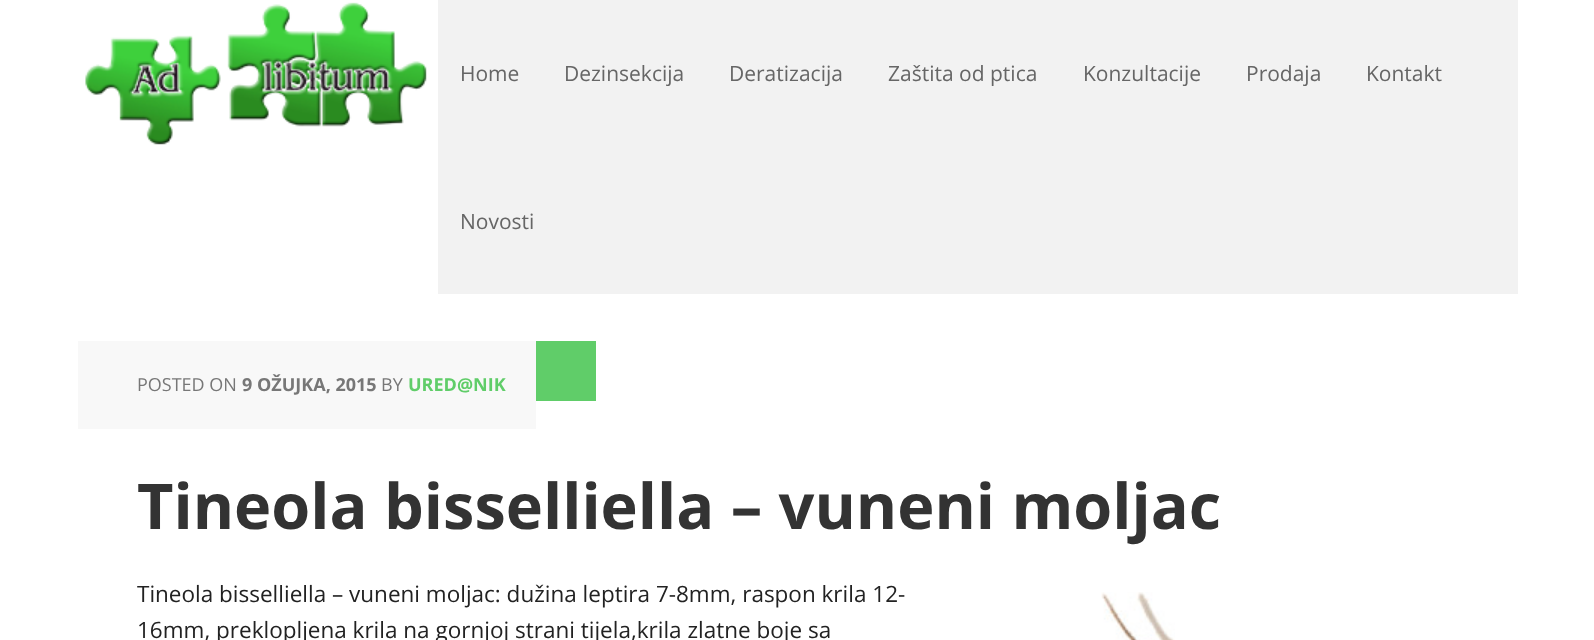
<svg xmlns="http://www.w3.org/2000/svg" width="1594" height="640">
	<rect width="100%" height="100%" fill="#FFFFFF" />
	<image x="85" y="2" width="342" height="143" href="assets/img1.png" />
	<rect x="438" y="0" width="1080" height="294" fill="#F2F2F2" />
	<g font-family="Open Sans" font-size="21" fill="#666666">
		<text x="460" y="81">Home</text>
		<text x="564" y="81">Dezinsekcija</text>
		<text x="729" y="81">Deratizacija</text>
		<text x="888" y="81">Zaštita od ptica</text>
		<text x="1083" y="81">Konzultacije</text>
		<text x="1246" y="81">Prodaja</text>
		<text x="1366" y="81">Kontakt</text>
		<text x="460" y="229">Novosti</text>
	</g>
	<rect x="78" y="341" width="458" height="88" fill="#F8F8F8" />
	<text x="137" y="391" font-family="Open Sans" font-size="18" fill="#777777">POSTED ON</text>
	<text x="242" y="391" font-family="Open Sans" font-size="18" font-weight="700" fill="#777777">9 OŽUJKA, 2015</text>
	<text x="381" y="391" font-family="Open Sans" font-size="18" fill="#777777">BY</text>
	<text x="408" y="391" font-family="Open Sans" font-size="18" font-weight="700" fill="#60CD69">URED@NIK</text>
	<rect x="536" y="341" width="60" height="60" fill="#60CD69" />
	<text x="137" y="529" font-family="Open Sans" font-size="63" font-weight="700" fill="#333333">Tineola bisselliella – vuneni moljac</text>
	<text x="137" y="602" font-family="Open Sans" font-size="22.5" fill="#222222">Tineola bisselliella – vuneni moljac: dužina leptira 7-8mm, raspon krila 12-</text>
	<image x="1101" y="592" width="74" height="48" href="assets/img2.png" />
	<text x="137" y="638" font-family="Open Sans" font-size="22.5" fill="#222222">16mm, preklopljena krila na gornjoj strani tijela,krila zlatne boje sa</text>
</svg>
